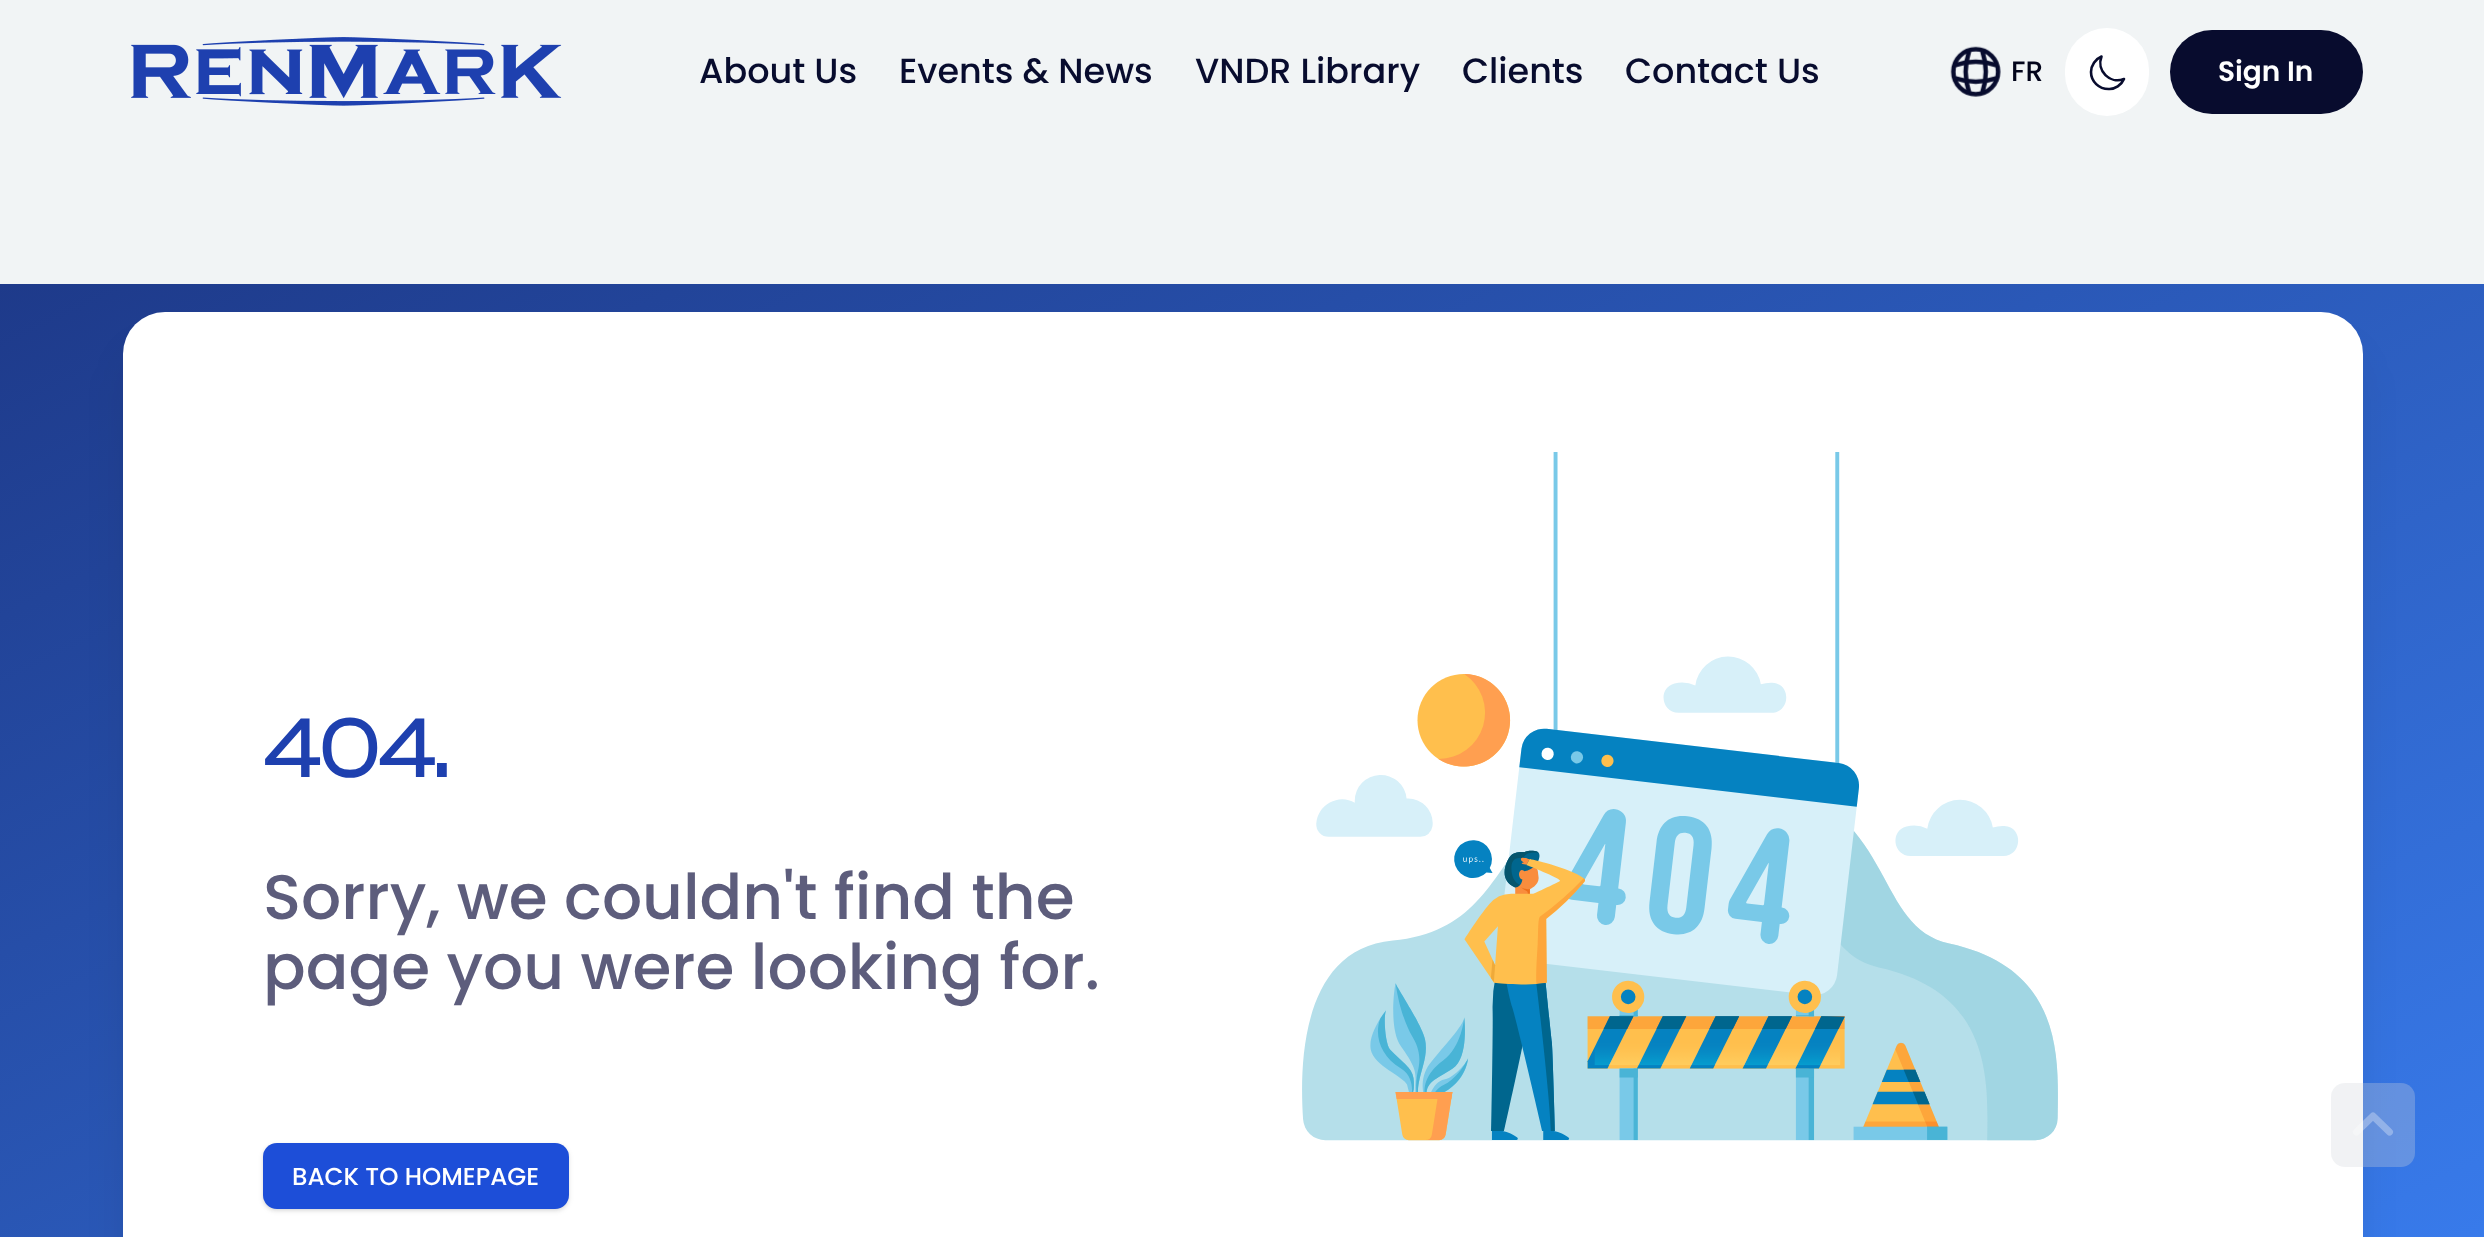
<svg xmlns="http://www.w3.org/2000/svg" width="2484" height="1237">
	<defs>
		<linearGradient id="g1" gradientUnits="userSpaceOnUse" x1="766" y1="-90" x2="1719" y2="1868"><stop offset="0" stop-color="#1E3A8A" /><stop offset="1" stop-color="#3B82F6" /></linearGradient>
	</defs>
	<rect width="100%" height="100%" fill="#F1F4F5" />
	<image x="131" y="37" width="431" height="69" href="assets/img1.png" />
	<g font-family="Poppins" font-size="35" font-weight="500" fill="#080C2E">
		<text x="699" y="83">About Us</text>
		<text x="899" y="83">Events &amp; News</text>
		<text x="1195" y="83">VNDR Library</text>
		<text x="1462" y="83">Clients</text>
		<text x="1625" y="83">Contact Us</text>
	</g>
	<image x="1950" y="46" width="51" height="51" href="assets/img2.png" />
	<text x="2011" y="81" font-family="Poppins" font-size="28" font-weight="500" fill="#03051B">FR</text>
	<rect x="2065" y="28" width="84" height="88" rx="42" fill="#FFFFFF" />
	<path d="M2124 79C2110 84.5 2096 70.5 2101.5 56.5C2095.5 59 2091 65.5 2091 72C2091 81.5 2099 89 2108.5 89C2115 89.5 2121.5 85 2124 79Z" fill="none" stroke="#080C2E" stroke-width="2.6" stroke-linecap="round" stroke-linejoin="round" />
	<rect x="2170" y="30" width="193" height="84" rx="42" fill="#080C2E" />
	<text x="2218" y="81" font-family="Poppins" font-size="28" font-weight="600" fill="#FFFFFF">Sign In</text>
	<rect x="0" y="284" width="2484" height="953" fill="url(#g1)" />
	<rect x="131" y="355" width="2223" height="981" rx="33" fill="#000000" fill-opacity="0.1" filter="blur(22px)" />
	<rect x="123" y="312" width="2240" height="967" rx="42" fill="#FFFFFF" />
	<text x="263" y="777" font-family="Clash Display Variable" font-size="84" font-weight="700" fill="#1E40AF">404.</text>
	<g font-family="Poppins" font-size="63" font-weight="500" fill="#5D5D7C">
		<text x="263" y="919">Sorry, we couldn't find the</text>
		<text x="263" y="989">page you were looking for.</text>
	</g>
	<rect x="264" y="1146" width="303" height="63" rx="12" fill="#000000" fill-opacity="0.1" filter="blur(2px)" />
	<rect x="263" y="1145" width="306" height="66" rx="14" fill="#000000" fill-opacity="0.1" filter="blur(2.5px)" />
	<rect x="263" y="1143" width="306" height="66" rx="14" fill="#1D4ED8" />
	<text x="292" y="1185" font-family="Poppins" font-size="24.5" font-weight="500" fill="#FFFFFF">BACK TO HOMEPAGE</text>
	<image x="1302" y="452" width="756" height="689" href="assets/img3.png" />
	<rect x="2331" y="1083" width="84" height="84" rx="14" fill="#D1D5DB" fill-opacity="0.3" />
	<path d="M2356.5 1132L2373 1116L2389.5 1132" fill="none" stroke="#FFFFFF" stroke-opacity="0.3" stroke-width="7" stroke-linecap="round" stroke-linejoin="round" />
</svg>
